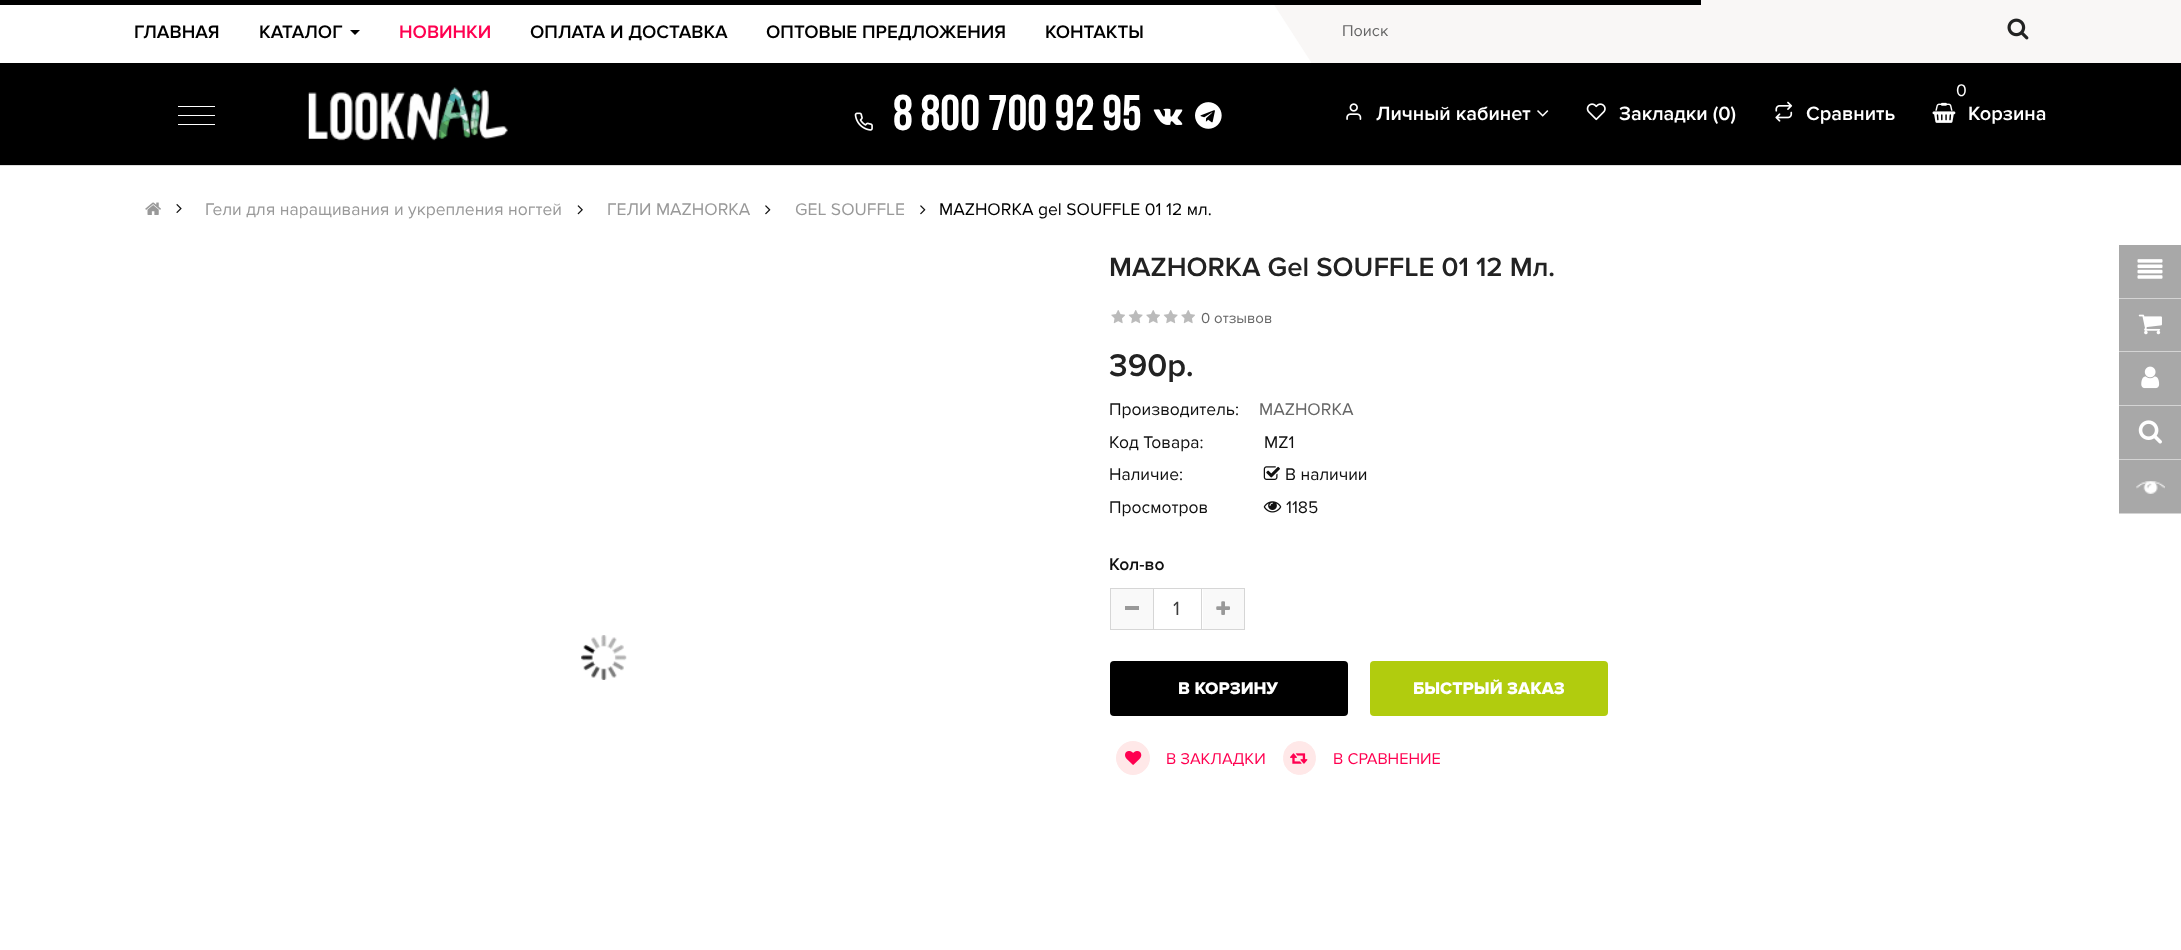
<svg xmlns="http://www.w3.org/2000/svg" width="2181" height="950">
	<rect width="100%" height="100%" fill="#FFFFFF" />
	<path d="M1271 0H1311V62Z" fill="#F9F7F6" />
	<rect x="1311" y="0" width="870" height="63" fill="#F9F7F6" />
	<rect x="0" y="0" width="1701" height="5" fill="#000000" />
	<rect x="0" y="63" width="2181" height="102" fill="#000000" />
	<rect x="0" y="165" width="2181" height="1" fill="#DDDDDD" />
	<g font-family="Proxima Nova" font-size="18.75" font-weight="600" fill="#000000">
		<text x="134" y="38">ГЛАВНАЯ</text>
		<text x="259" y="38">КАТАЛОГ</text>
	</g>
	<path d="M350 30H360L355 35Z" fill="#000000" />
	<text x="399" y="38" font-family="Proxima Nova" font-size="18.75" font-weight="600" fill="#FF0050">НОВИНКИ</text>
	<g font-family="Proxima Nova" font-size="18.75" font-weight="600" fill="#000000">
		<text x="530" y="38">ОПЛАТА И ДОСТАВКА</text>
		<text x="766" y="38">ОПТОВЫЕ ПРЕДЛОЖЕНИЯ</text>
		<text x="1045" y="38">КОНТАКТЫ</text>
	</g>
	<text x="1342" y="36" font-family="Proxima Nova" font-size="16.25" fill="#666666">Поиск</text>
	<image x="2007" y="18" width="22" height="22" href="assets/img1.png" />
	<rect x="178" y="106" width="37" height="1" fill="#FFFFFF" />
	<rect x="178" y="115" width="37" height="1" fill="#FFFFFF" />
	<rect x="178" y="124" width="37" height="1" fill="#FFFFFF" />
	<image x="308" y="87" width="200" height="54" href="assets/img2.png" />
	<image x="854" y="112" width="19" height="19" href="assets/img3.png" />
	<text x="893" y="130" font-family="Bebas Neue" font-size="50" font-weight="700" fill="#FFFFFF">8 800 700 92 95</text>
	<image x="1153" y="108" width="30" height="17" href="assets/img4.png" />
	<image x="1195" y="102" width="27" height="27" href="assets/img5.png" />
	<image x="1346" y="103" width="16" height="17" href="assets/img6.png" />
	<text x="1376" y="120" font-family="Proxima Nova" font-size="20" font-weight="600" fill="#FFFFFF">Личный кабинет</text>
	<image x="1537" y="110" width="12" height="7" href="assets/img7.png" />
	<image x="1586" y="103" width="20" height="18" href="assets/img8.png" />
	<text x="1619" y="120" font-family="Proxima Nova" font-size="20" font-weight="600" fill="#FFFFFF">Закладки (0)</text>
	<image x="1775" y="101" width="18" height="21" href="assets/img9.png" />
	<text x="1806" y="120" font-family="Proxima Nova" font-size="20" font-weight="600" fill="#FFFFFF">Сравнить</text>
	<image x="1932" y="102" width="24" height="21" href="assets/img10.png" />
	<text x="1956" y="96" font-family="Proxima Nova" font-size="17.5" fill="#FFFFFF">0</text>
	<text x="1968" y="120" font-family="Proxima Nova" font-size="20" font-weight="600" fill="#FFFFFF">Корзина</text>
	<image x="145" y="202" width="16" height="13" href="assets/img11.png" />
	<image x="176" y="204" width="6" height="9" href="assets/img12.png" />
	<text x="205" y="215" font-family="Proxima Nova" font-size="17.5" fill="#999999">Гели для наращивания и укрепления ногтей</text>
	<image x="577" y="205" width="6" height="10" href="assets/img13.png" />
	<text x="607" y="215" font-family="Proxima Nova" font-size="17.5" fill="#999999">ГЕЛИ MAZHORKA</text>
	<image x="765" y="205" width="6" height="10" href="assets/img14.png" />
	<text x="795" y="215" font-family="Proxima Nova" font-size="17.5" fill="#999999">GEL SOUFFLE</text>
	<image x="920" y="205" width="6" height="10" href="assets/img14.png" />
	<text x="939" y="215" font-family="Proxima Nova" font-size="17.5" fill="#000000">MAZHORKA gel SOUFFLE 01 12 мл.</text>
	<image x="581" y="635" width="46" height="45" href="assets/img15.png" />
	<text x="1109" y="276" font-family="Proxima Nova" font-size="27.5" font-weight="600" fill="#222222">MAZHORKA Gel SOUFFLE 01 12 Мл.</text>
	<image x="1111" y="310" width="14" height="14" href="assets/img16.png" />
	<image x="1128" y="310" width="15" height="14" href="assets/img17.png" />
	<image x="1146" y="310" width="14" height="14" href="assets/img16.png" />
	<image x="1163" y="310" width="15" height="14" href="assets/img17.png" />
	<image x="1181" y="310" width="14" height="14" href="assets/img16.png" />
	<text x="1201" y="323" font-family="Proxima Nova" font-size="15" fill="#666666">0 отзывов</text>
	<text x="1109" y="376" font-family="Proxima Nova" font-size="32.5" font-weight="600" fill="#222222">390р.</text>
	<text x="1109" y="415" font-family="Proxima Nova" font-size="17.5" fill="#101010">Производитель:</text>
	<text x="1259" y="415" font-family="Proxima Nova" font-size="17.5" fill="#666666">MAZHORKA</text>
	<g font-family="Proxima Nova" font-size="17.5" fill="#101010">
		<text x="1109" y="448">Код Товара:</text>
		<text x="1264" y="448">MZ1</text>
		<text x="1109" y="480">Наличие:</text>
	</g>
	<image x="1263" y="466" width="17" height="14" href="assets/img18.png" />
	<g font-family="Proxima Nova" font-size="17.5" fill="#101010">
		<text x="1285" y="480">В наличии</text>
		<text x="1109" y="513">Просмотров</text>
	</g>
	<image x="1263" y="501" width="19" height="12" href="assets/img19.png" />
	<text x="1286" y="513" font-family="Proxima Nova" font-size="17.5" fill="#101010">1185</text>
	<text x="1109" y="570" font-family="Proxima Nova" font-size="17.5" font-weight="600" fill="#101010">Кол-во</text>
	<rect x="1110.5" y="588.5" width="134" height="41" fill="none" stroke="#D6D6D6" />
	<rect x="1111" y="589" width="42" height="40" fill="#F9F9F9" />
	<rect x="1125" y="606" width="14" height="4" fill="#999999" />
	<rect x="1201" y="589" width="1" height="40" fill="#D6D6D6" />
	<rect x="1153" y="589" width="1" height="40" fill="#D6D6D6" />
	<text x="1173" y="615" font-family="Proxima Nova" font-size="20" fill="#3D3D3D">1</text>
	<rect x="1203" y="589" width="41" height="40" fill="#F9F9F9" />
	<image x="1216" y="601" width="14" height="14" href="assets/img20.png" />
	<rect x="1110" y="661" width="238" height="55" rx="4" fill="#000000" />
	<text x="1178" y="694" font-family="Proxima Nova" font-size="17.5" font-weight="800" fill="#FFFFFF">В КОРЗИНУ</text>
	<rect x="1370" y="661" width="238" height="55" rx="4" fill="#B1CC0E" />
	<text x="1413" y="694" font-family="Proxima Nova" font-size="17.5" font-weight="800" fill="#FFFFFF">БЫСТРЫЙ ЗАКАЗ</text>
	<circle cx="1133" cy="758" r="16.5" fill="#FFE8E8" stroke="#FFE8E8" />
	<image x="1125" y="751" width="17" height="14" href="assets/img21.png" />
	<text x="1166" y="764" font-family="Proxima Nova" font-size="16.25" fill="#FF0050">В ЗАКЛАДКИ</text>
	<rect x="1283.5" y="741.5" width="32" height="33" rx="16" fill="#FFE8E8" stroke="#FFE8E8" />
	<image x="1290" y="753" width="18" height="11" href="assets/img22.png" />
	<text x="1333" y="764" font-family="Proxima Nova" font-size="16.25" fill="#FF0050">В СРАВНЕНИЕ</text>
	<rect x="2119" y="245" width="62" height="53" fill="#A8A8A8" />
	<rect x="2119" y="298" width="62" height="1" fill="#D4D4D4" />
	<image x="2137" y="259" width="26" height="20" href="assets/img23.png" />
	<rect x="2119" y="299" width="62" height="106" fill="#A8A8A8" />
	<rect x="2119" y="351" width="62" height="1" fill="#D4D4D4" />
	<image x="2138" y="314" width="24" height="21" href="assets/img24.png" />
	<rect x="2119" y="405" width="62" height="1" fill="#D4D4D4" />
	<image x="2141" y="366" width="19" height="23" href="assets/img25.png" />
	<rect x="2119" y="406" width="62" height="53" fill="#A8A8A8" />
	<rect x="2119" y="459" width="62" height="1" fill="#D4D4D4" />
	<image x="2138" y="420" width="24" height="24" href="assets/img26.png" />
	<rect x="2119" y="460" width="62" height="53" fill="#A8A8A8" />
	<rect x="2119" y="513" width="62" height="1" fill="#D4D4D4" />
	<image x="2136" y="481" width="29" height="13" href="assets/img27.png" />
</svg>
